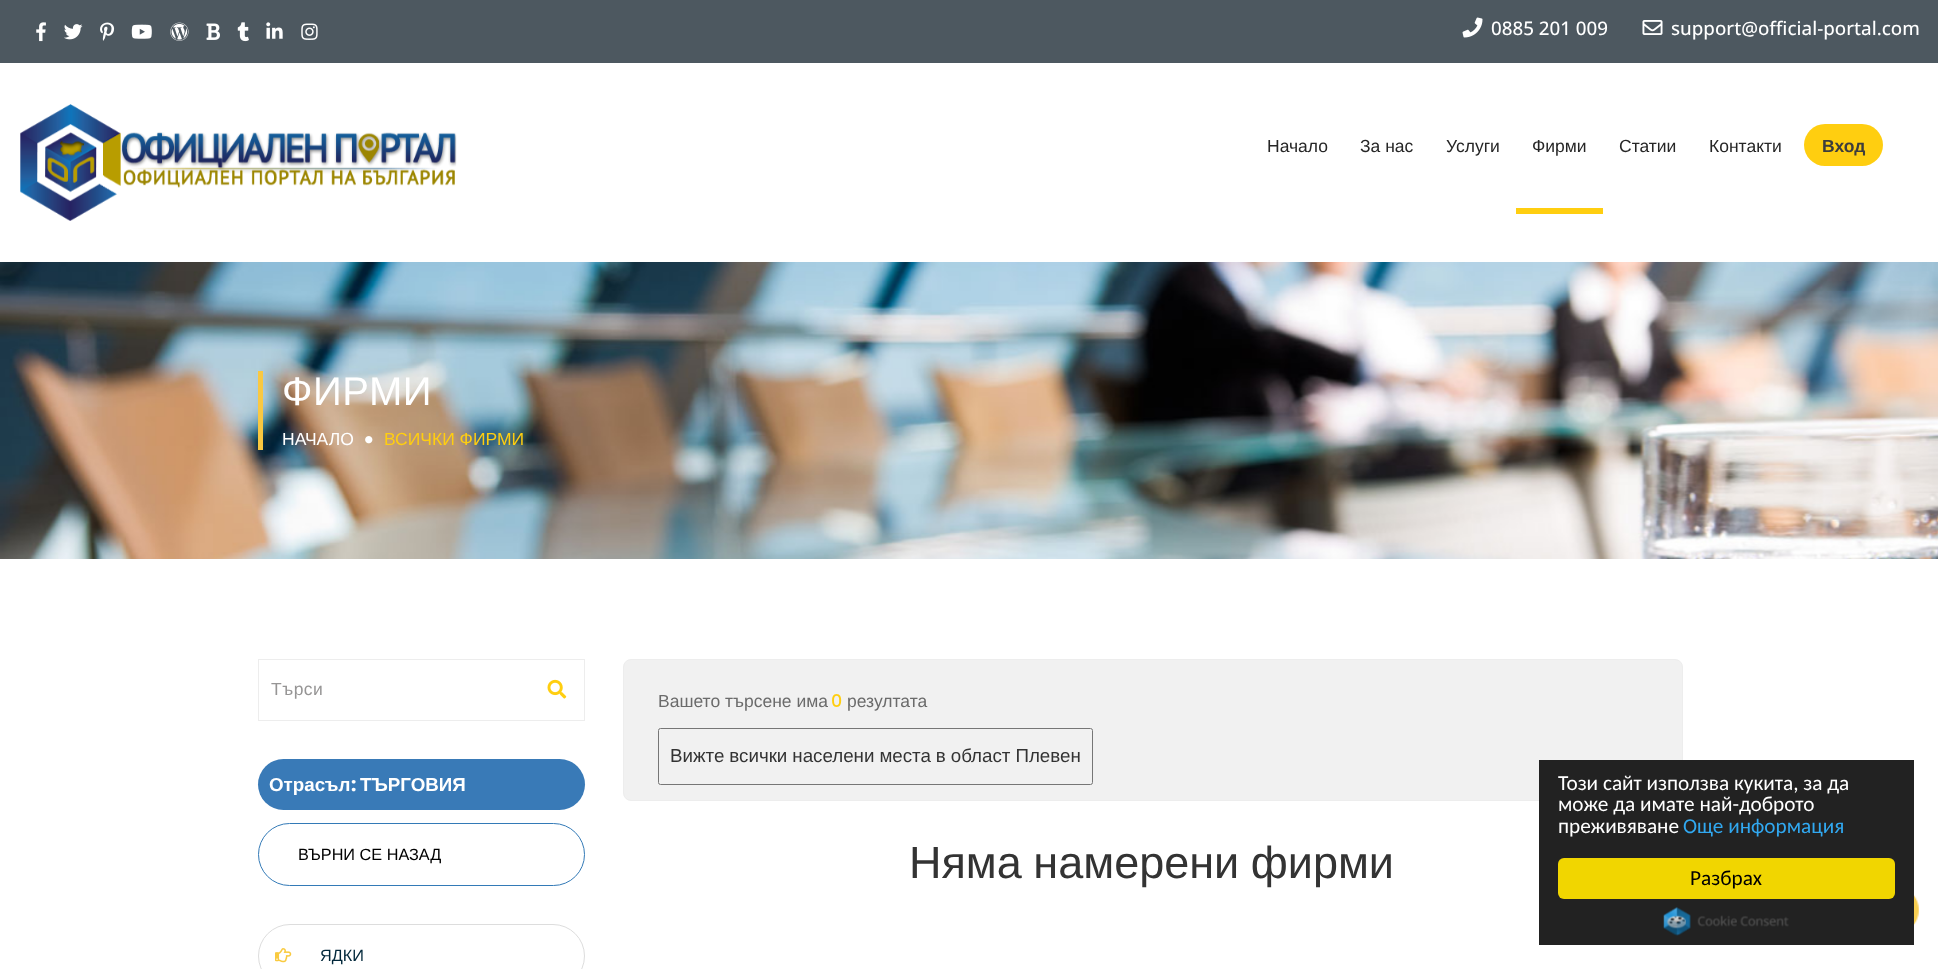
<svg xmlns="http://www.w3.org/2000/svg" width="1938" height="969">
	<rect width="100%" height="100%" fill="#FFFFFF" />
	<rect x="0" y="0" width="1938" height="63" fill="#4D5860" />
	<image x="36" y="22" width="10" height="20" href="assets/img1.png" />
	<image x="64" y="24" width="19" height="16" href="assets/img2.png" />
	<image x="100" y="22" width="15" height="19" href="assets/img3.png" />
	<image x="131" y="24" width="21" height="15" href="assets/img4.png" />
	<image x="170" y="22" width="19" height="19" href="assets/img5.png" />
	<image x="206" y="23" width="14" height="17" href="assets/img6.png" />
	<image x="237" y="22" width="12" height="20" href="assets/img7.png" />
	<image x="266" y="22" width="17" height="17" href="assets/img8.png" />
	<image x="301" y="23" width="17" height="17" href="assets/img9.png" />
	<image x="1462" y="17" width="21" height="21" href="assets/img10.png" />
	<text x="1491" y="35" font-family="Open Sans" font-size="18.75" font-weight="500" fill="#FFFFFF">0885 201 009</text>
	<image x="1642" y="20" width="21" height="15" href="assets/img11.png" />
	<text x="1671" y="35" font-family="Open Sans" font-size="18.75" font-weight="500" fill="#FFFFFF">support@official-portal.com</text>
	<image x="20" y="104" width="437" height="117" href="assets/img12.png" />
	<g font-family="Liberation Sans" font-size="17.5" fill="#262626">
		<text x="1267" y="152">Начало</text>
		<text x="1360" y="152">За нас</text>
		<text x="1446" y="152">Услуги</text>
	</g>
	<rect x="1516" y="208" width="87" height="6" fill="#FFCE10" />
	<g font-family="Liberation Sans" font-size="17.5" fill="#262626">
		<text x="1532" y="152">Фирми</text>
		<text x="1619" y="152">Статии</text>
		<text x="1709" y="152">Контакти</text>
	</g>
	<rect x="1804" y="124" width="79" height="42" rx="21" fill="#FFCE10" />
	<text x="1822" y="152" font-family="Liberation Sans" font-size="17.5" font-weight="700" fill="#3D3D3D">Вход</text>
	<image x="0" y="262" width="1938" height="297" href="assets/img13.png" />
	<rect x="258" y="371" width="5" height="79" fill="#F9C841" />
	<text x="282" y="405" font-family="Liberation Sans" font-size="40" letter-spacing="0.5" fill="#FFFFFF">ФИРМИ</text>
	<text x="282" y="445" font-family="Liberation Sans" font-size="17.5" fill="#FFFFFF">НАЧАЛО</text>
	<image x="365" y="436" width="8" height="8" href="assets/img14.png" />
	<text x="384" y="445" font-family="Liberation Sans" font-size="17.5" fill="#FFCE10">ВСИЧКИ ФИРМИ</text>
	<rect x="258.5" y="659.5" width="326" height="61" fill="none" stroke="#EDEDED" />
	<text x="271" y="695" font-family="Liberation Sans" font-size="17.5" letter-spacing="0.5" fill="#969595">Търси</text>
	<image x="547" y="679" width="20" height="20" href="assets/img15.png" />
	<rect x="258" y="759" width="327" height="51" rx="25.5" fill="#397AB7" />
	<text x="269" y="791" font-family="Liberation Sans" font-size="18.75" font-weight="700" fill="#FFFFFF">Отрасъл</text>
	<text x="351" y="791" font-family="Poppins" font-size="18.75" font-weight="700" fill="#FFFFFF">:</text>
	<text x="360" y="791" font-family="Liberation Sans" font-size="18.75" font-weight="700" fill="#FFFFFF">ТЪРГОВИЯ</text>
	<rect x="258.5" y="823.5" width="326" height="62" rx="31" fill="none" stroke="#337AB7" />
	<text x="298" y="860" font-family="Liberation Sans" font-size="16.25" fill="#000000">ВЪРНИ СЕ НАЗАД</text>
	<rect x="258.5" y="924.5" width="326" height="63" rx="31.5" fill="none" stroke="#DDDDDD" />
	<image x="275" y="948" width="17" height="15" href="assets/img16.png" />
	<text x="320" y="961" font-family="Liberation Sans" font-size="16.25" fill="#01273A">ЯДКИ</text>
	<rect x="623.5" y="659.5" width="1059" height="141" rx="7.5" fill="#F1F1F1" stroke="#EDEDED" />
	<text x="658" y="707" font-family="Liberation Sans" font-size="17.5" fill="#6B6B6B">Вашето търсене има</text>
	<text x="831" y="707" font-family="Poppins" font-size="17.5" font-weight="500" fill="#FFCE10">0</text>
	<text x="847" y="707" font-family="Liberation Sans" font-size="17.5" fill="#6B6B6B">резултата</text>
	<rect x="658.5" y="728.5" width="434" height="56" rx="2" fill="none" stroke="#767676" />
	<text x="670" y="762" word-spacing="-0.25" font-family="Liberation Sans" font-size="18.75" fill="#333333">Вижте всички населени места в област Плевен</text>
	<text x="909" y="878" word-spacing="-1" font-family="Liberation Sans" font-size="45" fill="#333333">Няма намерени фирми</text>
	<rect x="1539" y="760" width="375" height="185" fill="#222222" />
	<g font-family="Carlito" font-size="21.25" fill="#FFFFFF">
		<text x="1558" y="790">Този сайт използва кукита, за да</text>
		<text x="1558" y="811">може да имате най-доброто</text>
		<text x="1558" y="833">преживяване</text>
	</g>
	<text x="1683" y="833" font-family="Carlito" font-size="21.25" fill="#31A8F0">Още информация</text>
	<rect x="1558" y="858" width="337" height="41" rx="6" fill="#F1D600" />
	<text x="1690" y="885" font-family="Carlito" font-size="21.25" fill="#000000">Разбрах</text>
	<image x="1663" y="907" width="126" height="29" href="assets/img17.png" />
	<image x="1914" y="895" width="5" height="30" href="assets/img18.png" />
</svg>
